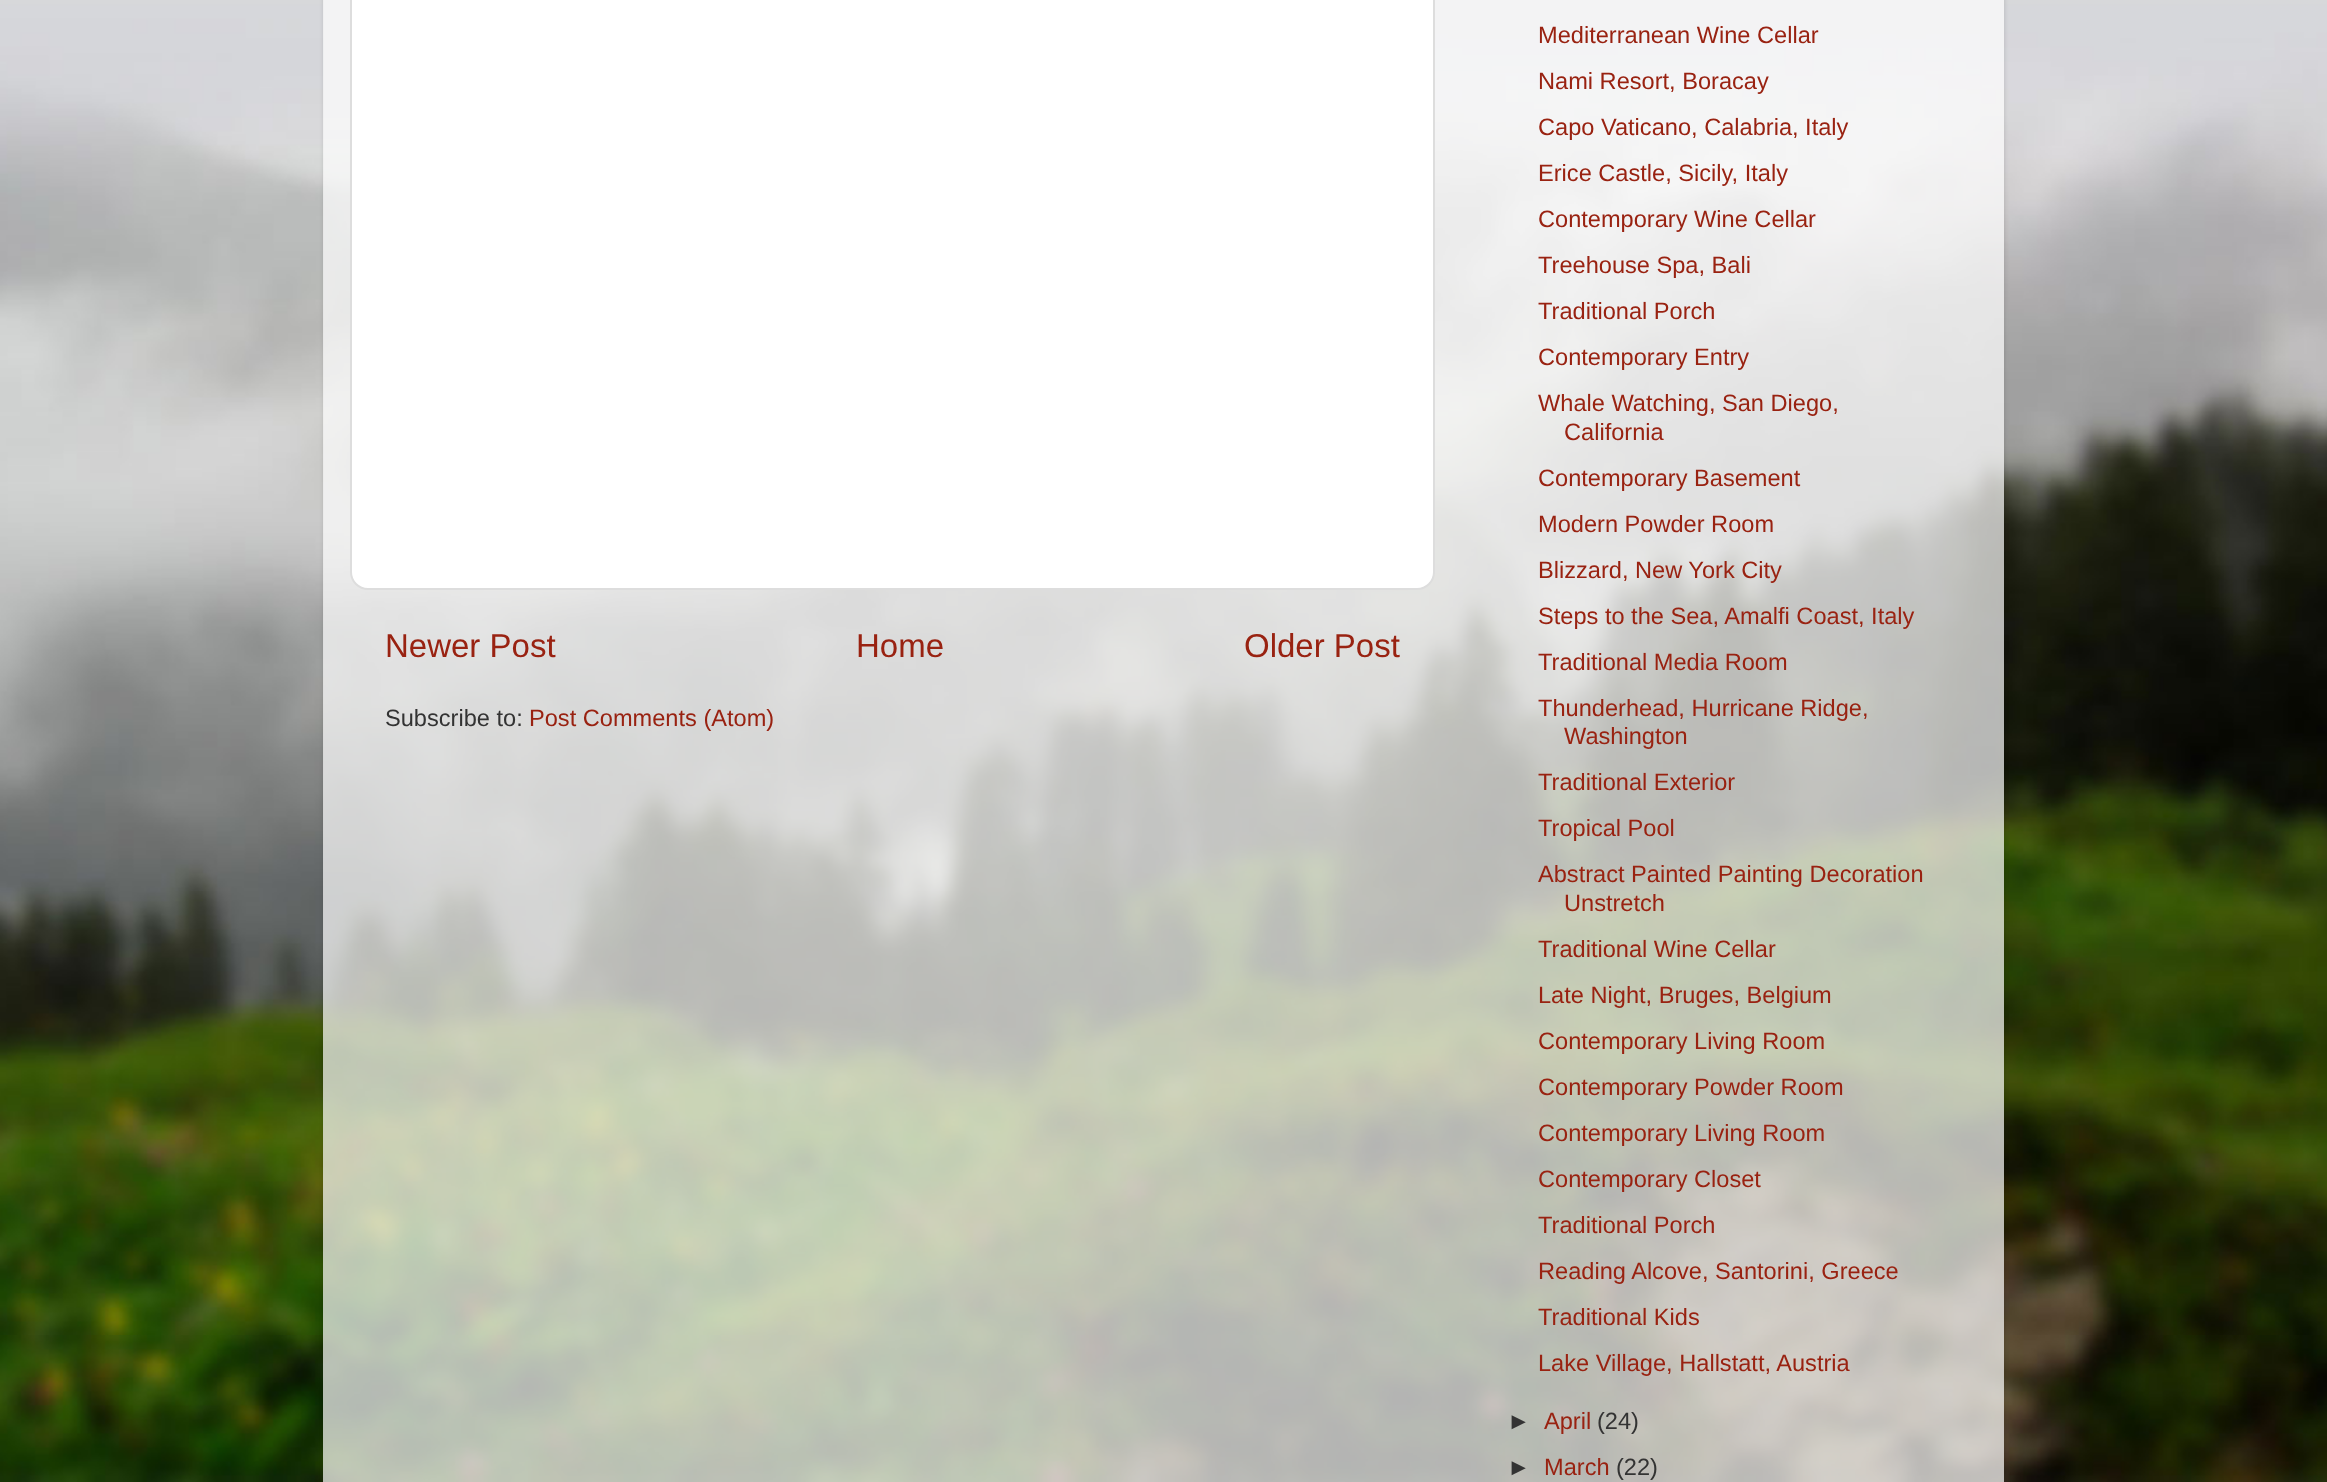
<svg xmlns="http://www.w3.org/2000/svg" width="2327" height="1482">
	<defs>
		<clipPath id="clip1"><path d="M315 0H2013V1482H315ZM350-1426H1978C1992.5-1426 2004-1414.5 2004-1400V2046C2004 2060.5 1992.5 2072 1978 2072H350C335.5 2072 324 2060.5 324 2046V-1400C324-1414.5 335.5-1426 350-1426Z" clip-rule="evenodd" /></clipPath>
	</defs>
	<rect width="100%" height="100%" fill="#FFFFFF" />
	<image x="0" y="0" width="2327" height="1482" href="assets/img1.png" />
	<g clip-path="url(#clip1)">
		<rect x="324" y="-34" width="1680" height="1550" rx="26" fill="#000000" fill-opacity="0.15" filter="blur(2.5px)" />
	</g>
	<rect x="323" y="0" width="1681" height="1482" fill="#FFFFFF" fill-opacity="0.7" />
	<rect x="351" y="-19" width="1083" height="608" rx="17" fill="#FFFFFF" stroke="#DDDDDD" stroke-width="2" />
	<g font-family="Liberation Sans" font-size="33" fill="#992211">
		<text x="385" y="657">Newer Post</text>
		<text x="856" y="657">Home</text>
		<text x="1244" y="657">Older Post</text>
	</g>
	<text x="385" y="726" font-family="Liberation Sans" font-size="23.6" fill="#333333">Subscribe to:</text>
	<g font-family="Liberation Sans" font-size="23.6" fill="#992211">
		<text x="529" y="726">Post Comments (Atom)</text>
		<text x="1538" y="43">Mediterranean Wine Cellar</text>
		<text x="1538" y="89">Nami Resort, Boracay</text>
		<text x="1538" y="135">Capo Vaticano, Calabria, Italy</text>
		<text x="1538" y="181">Erice Castle, Sicily, Italy</text>
		<text x="1538" y="227">Contemporary Wine Cellar</text>
		<text x="1538" y="273">Treehouse Spa, Bali</text>
		<text x="1538" y="319">Traditional Porch</text>
		<text x="1538" y="365">Contemporary Entry</text>
		<text x="1538" y="411">Whale Watching, San Diego,</text>
		<text x="1564" y="440">California</text>
		<text x="1538" y="486">Contemporary Basement</text>
		<text x="1538" y="532">Modern Powder Room</text>
		<text x="1538" y="578">Blizzard, New York City</text>
		<text x="1538" y="624">Steps to the Sea, Amalfi Coast, Italy</text>
		<text x="1538" y="670">Traditional Media Room</text>
		<text x="1538" y="716">Thunderhead, Hurricane Ridge,</text>
		<text x="1564" y="744">Washington</text>
		<text x="1538" y="790">Traditional Exterior</text>
		<text x="1538" y="836">Tropical Pool</text>
		<text x="1538" y="882">Abstract Painted Painting Decoration</text>
		<text x="1564" y="911">Unstretch</text>
		<text x="1538" y="957">Traditional Wine Cellar</text>
		<text x="1538" y="1003">Late Night, Bruges, Belgium</text>
		<text x="1538" y="1049">Contemporary Living Room</text>
		<text x="1538" y="1095">Contemporary Powder Room</text>
		<text x="1538" y="1141">Contemporary Living Room</text>
		<text x="1538" y="1187">Contemporary Closet</text>
		<text x="1538" y="1233">Traditional Porch</text>
		<text x="1538" y="1279">Reading Alcove, Santorini, Greece</text>
		<text x="1538" y="1325">Traditional Kids</text>
		<text x="1538" y="1371">Lake Village, Hallstatt, Austria</text>
	</g>
	<text x="1507" y="1429" font-family="Liberation Sans" font-size="23.6" fill="#333333">►</text>
	<text x="1544" y="1429" font-family="Liberation Sans" font-size="23.6" fill="#992211">April</text>
	<g font-family="Liberation Sans" font-size="23.6" fill="#333333">
		<text x="1597" y="1429">(24)</text>
		<text x="1507" y="1475">►</text>
	</g>
	<text x="1544" y="1475" font-family="Liberation Sans" font-size="23.6" fill="#992211">March</text>
	<text x="1616" y="1475" font-family="Liberation Sans" font-size="23.6" fill="#333333">(22)</text>
</svg>
